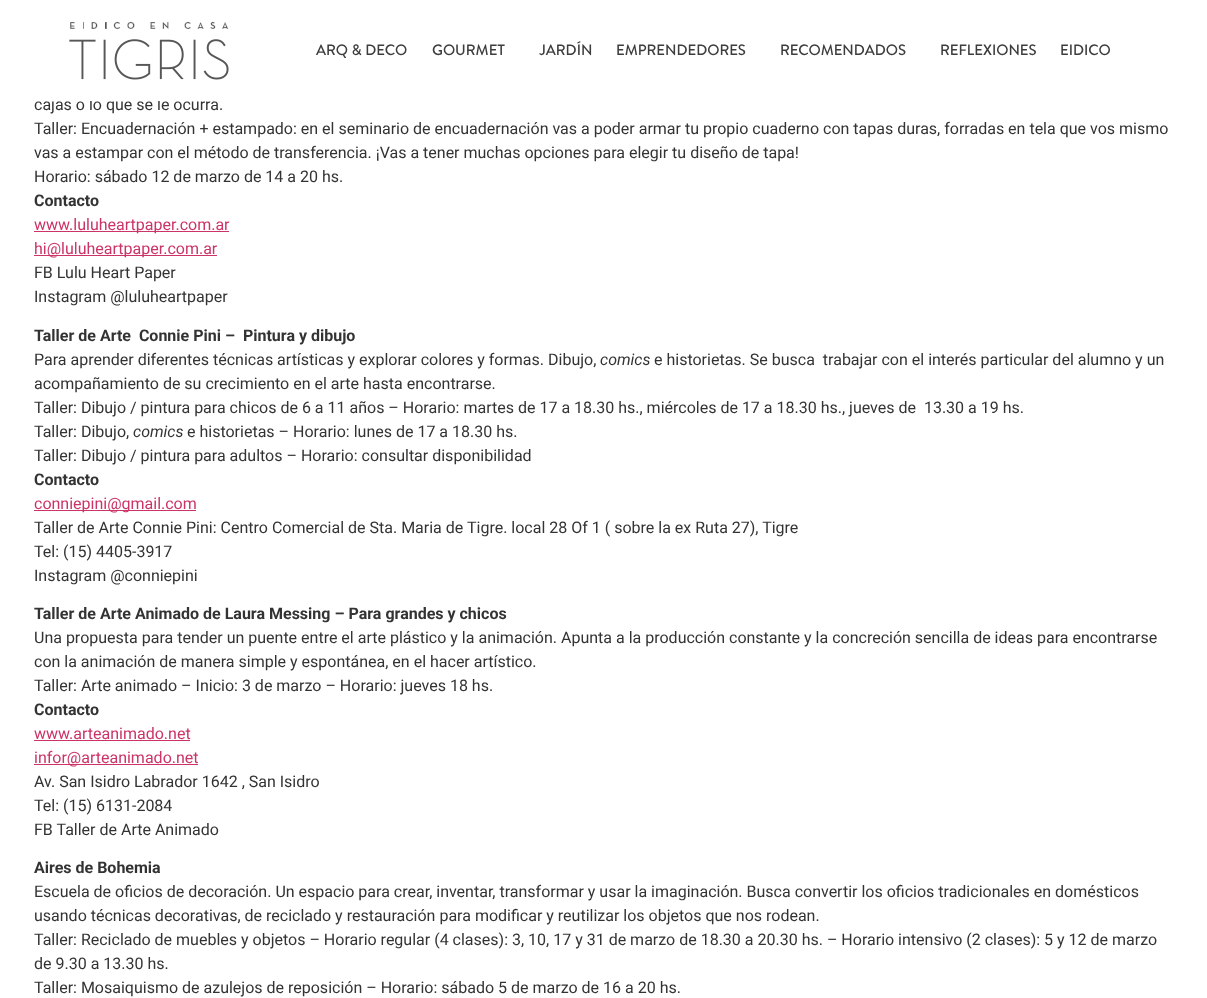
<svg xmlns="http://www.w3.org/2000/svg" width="1207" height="998">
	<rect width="100%" height="100%" fill="#FFFFFF" />
	<text x="34" y="110" font-family="Roboto" font-size="16" fill="#333333">cajas o lo que se le ocurra.</text>
	<rect x="51" y="98" width="109" height="3" fill="#FFFFFF" />
	<image x="69" y="21" width="160" height="59" href="assets/img1.png" />
	<g font-family="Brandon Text" font-size="15" font-weight="500" fill="#3D3D3D">
		<text x="316" y="55">ARQ &amp; DECO</text>
		<text x="432" y="55">GOURMET</text>
		<text x="539" y="55">JARDÍN</text>
		<text x="616" y="55">EMPRENDEDORES</text>
		<text x="780" y="55">RECOMENDADOS</text>
		<text x="940" y="55">REFLEXIONES</text>
		<text x="1060" y="55">EIDICO</text>
	</g>
	<g font-family="Roboto" font-size="16" fill="#333333">
		<text x="34" y="134">Taller: Encuadernación + estampado: en el seminario de encuadernación vas a poder armar tu propio cuaderno con tapas duras, forradas en tela que vos mismo</text>
		<text x="34" y="158">vas a estampar con el método de transferencia. ¡Vas a tener muchas opciones para elegir tu diseño de tapa!</text>
		<text x="34" y="182">Horario: sábado 12 de marzo de 14 a 20 hs.</text>
	</g>
	<text x="34" y="206" font-family="Roboto" font-size="16" font-weight="700" fill="#333333">Contacto</text>
	<rect x="34" y="231" width="195" height="1" fill="#CC3366" />
	<text x="34" y="230" font-family="Roboto" font-size="16" fill="#CC3366">www.luluheartpaper.com.ar</text>
	<rect x="34" y="255" width="183" height="1" fill="#CC3366" />
	<text x="34" y="254" font-family="Roboto" font-size="16" fill="#CC3366">hi@luluheartpaper.com.ar</text>
	<g font-family="Roboto" font-size="16" fill="#333333">
		<text x="34" y="278">FB Lulu Heart Paper</text>
		<text x="34" y="302">Instagram @luluheartpaper</text>
	</g>
	<text x="34" y="341" font-family="Roboto" font-size="16" font-weight="700" fill="#333333" xml:space="preserve">Taller de Arte  Connie Pini –  Pintura y dibujo</text>
	<text x="34" y="365" font-family="Roboto" font-size="16" fill="#333333">Para aprender diferentes técnicas artísticas y explorar colores y formas. Dibujo,</text>
	<text x="600" y="365" font-family="Roboto" font-size="16" font-style="italic" fill="#333333">comics</text>
	<g font-family="Roboto" font-size="16" fill="#333333">
		<text x="654" y="365" xml:space="preserve">e historietas. Se busca  trabajar con el interés particular del alumno y un</text>
		<text x="34" y="389">acompañamiento de su crecimiento en el arte hasta encontrarse.</text>
		<text x="34" y="413" xml:space="preserve">Taller: Dibujo / pintura para chicos de 6 a 11 años – Horario: martes de 17 a 18.30 hs., miércoles de 17 a 18.30 hs., jueves de  13.30 a 19 hs.</text>
		<text x="34" y="437">Taller: Dibujo,</text>
	</g>
	<text x="133" y="437" font-family="Roboto" font-size="16" font-style="italic" fill="#333333">comics</text>
	<g font-family="Roboto" font-size="16" fill="#333333">
		<text x="187" y="437">e historietas – Horario: lunes de 17 a 18.30 hs.</text>
		<text x="34" y="461">Taller: Dibujo / pintura para adultos – Horario: consultar disponibilidad</text>
	</g>
	<text x="34" y="485" font-family="Roboto" font-size="16" font-weight="700" fill="#333333">Contacto</text>
	<rect x="34" y="510" width="162" height="1" fill="#CC3366" />
	<text x="34" y="509" font-family="Roboto" font-size="16" fill="#CC3366">conniepini@gmail.com</text>
	<g font-family="Roboto" font-size="16" fill="#333333">
		<text x="34" y="533">Taller de Arte Connie Pini: Centro Comercial de Sta. Maria de Tigre. local 28 Of 1 ( sobre la ex Ruta 27), Tigre</text>
		<text x="34" y="557">Tel: (15) 4405-3917</text>
		<text x="34" y="581">Instagram @conniepini</text>
	</g>
	<text x="34" y="619" font-family="Roboto" font-size="16" font-weight="700" fill="#333333">Taller de Arte Animado de Laura Messing – Para grandes y chicos</text>
	<g font-family="Roboto" font-size="16" fill="#333333">
		<text x="34" y="643">Una propuesta para tender un puente entre el arte plástico y la animación. Apunta a la producción constante y la concreción sencilla de ideas para encontrarse</text>
		<text x="34" y="667">con la animación de manera simple y espontánea, en el hacer artístico.</text>
		<text x="34" y="691">Taller: Arte animado – Inicio: 3 de marzo – Horario: jueves 18 hs.</text>
	</g>
	<text x="34" y="715" font-family="Roboto" font-size="16" font-weight="700" fill="#333333">Contacto</text>
	<text x="34" y="739" font-family="Roboto" font-size="16" fill="#CC3366">www.arteanimado.net</text>
	<rect x="34" y="740" width="156" height="1" fill="#CC3366" />
	<rect x="34" y="764" width="164" height="1" fill="#CC3366" />
	<text x="34" y="763" font-family="Roboto" font-size="16" fill="#CC3366">infor@arteanimado.net</text>
	<g font-family="Roboto" font-size="16" fill="#333333">
		<text x="34" y="787">Av. San Isidro Labrador 1642 , San Isidro</text>
		<text x="34" y="811">Tel: (15) 6131-2084</text>
		<text x="34" y="835">FB Taller de Arte Animado</text>
	</g>
	<text x="34" y="873" font-family="Roboto" font-size="16" font-weight="700" fill="#333333">Aires de Bohemia</text>
	<g font-family="Roboto" font-size="16" fill="#333333">
		<text x="34" y="897">Escuela de oficios de decoración. Un espacio para crear, inventar, transformar y usar la imaginación. Busca convertir los oficios tradicionales en domésticos</text>
		<text x="34" y="921">usando técnicas decorativas, de reciclado y restauración para modificar y reutilizar los objetos que nos rodean.</text>
		<text x="34" y="945">Taller: Reciclado de muebles y objetos – Horario regular (4 clases): 3, 10, 17 y 31 de marzo de 18.30 a 20.30 hs. – Horario intensivo (2 clases): 5 y 12 de marzo</text>
		<text x="34" y="969">de 9.30 a 13.30 hs.</text>
		<text x="34" y="993">Taller: Mosaiquismo de azulejos de reposición – Horario: sábado 5 de marzo de 16 a 20 hs.</text>
	</g>
</svg>
